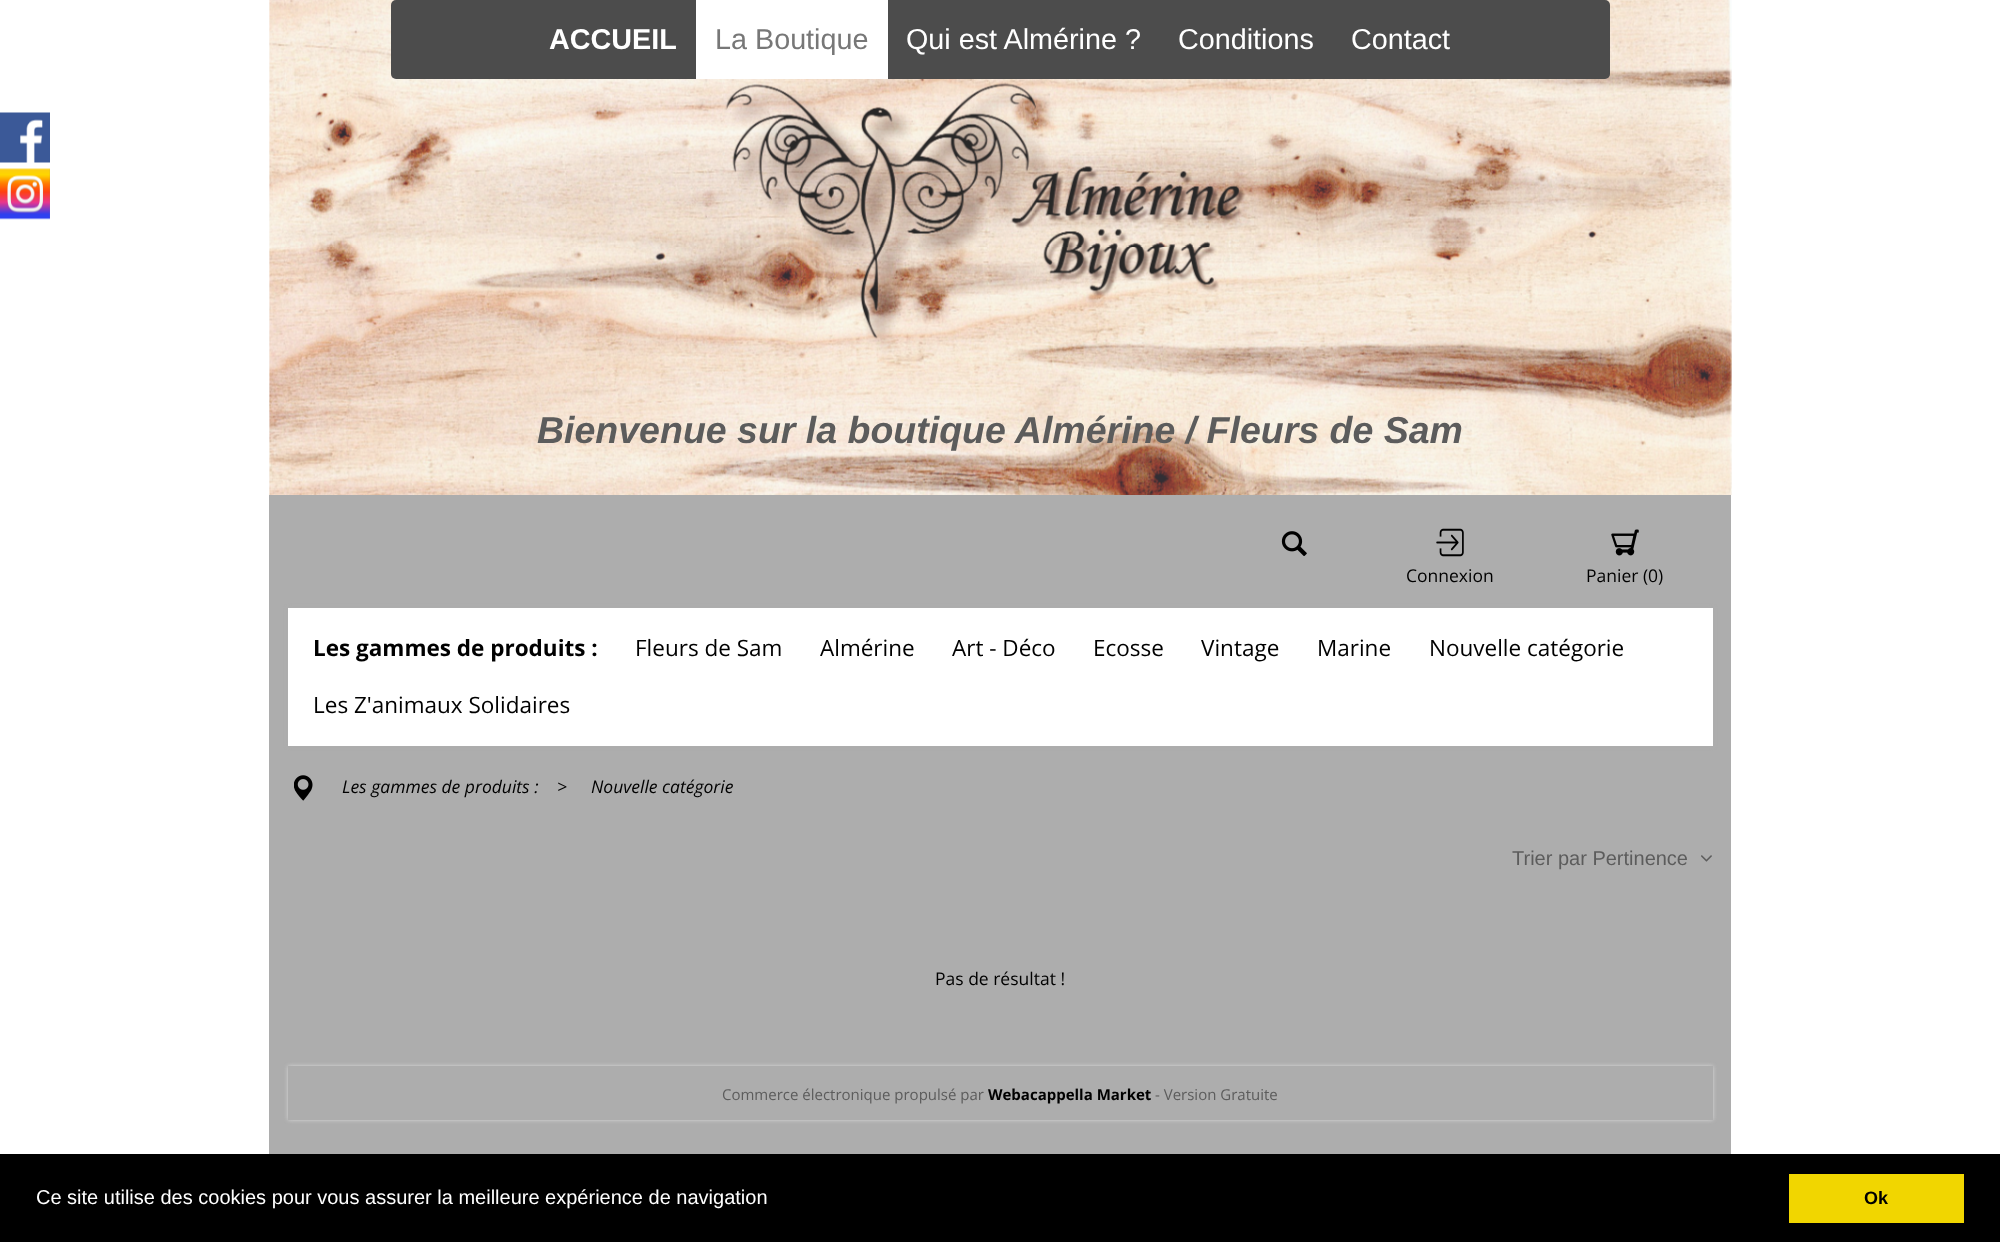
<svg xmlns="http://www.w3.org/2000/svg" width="2000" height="1242">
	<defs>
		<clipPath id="clip1"><path d="M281 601H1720V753H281ZM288 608H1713V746H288Z" clip-rule="evenodd" /></clipPath>
		<clipPath id="clip2"><path d="M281 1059H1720V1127H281ZM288 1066H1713V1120H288Z" clip-rule="evenodd" /></clipPath>
	</defs>
	<rect width="100%" height="100%" fill="#FFFFFF" />
	<image x="269" y="0" width="1463" height="495" href="assets/img1.png" />
	<image x="0" y="112" width="50" height="51" href="assets/img2.png" />
	<image x="0" y="168" width="50" height="52" href="assets/img3.png" />
	<rect x="391" y="0" width="1219" height="79" rx="5" fill="#4C4C4C" />
	<text x="549" y="49" font-family="Liberation Sans" font-size="28.75" font-weight="700" fill="#FFFFFF">ACCUEIL</text>
	<rect x="696" y="0" width="192" height="79" fill="#FFFFFF" />
	<text x="715" y="49" font-family="Liberation Sans" font-size="28.75" fill="#777777">La Boutique</text>
	<g font-family="Liberation Sans" font-size="28.75" fill="#FFFFFF">
		<text x="906" y="49">Qui est Almérine ?</text>
		<text x="1178" y="49">Conditions</text>
		<text x="1351" y="49">Contact</text>
	</g>
	<text x="537" y="443" font-family="Liberation Sans" font-size="37.5" font-weight="700" font-style="italic" fill="#5C5C5C">Bienvenue sur la boutique Almérine / Fleurs de Sam</text>
	<rect x="269" y="495" width="1462" height="659" fill="#ADADAD" />
	<image x="1281" y="531" width="26" height="25" href="assets/img4.png" />
	<image x="1436" y="528" width="28" height="29" href="assets/img5.png" />
	<text x="1406" y="582" font-family="Open Sans" font-size="17.5" fill="#000000">Connexion</text>
	<image x="1611" y="529" width="28" height="27" href="assets/img6.png" />
	<text x="1586" y="582" font-family="Open Sans" font-size="17.5" fill="#000000">Panier (0)</text>
	<rect x="288" y="608" width="1425" height="138" fill="#FFFFFF" />
	<g clip-path="url(#clip1)">
		<rect x="288" y="608" width="1425" height="138" fill="#ADADAD" filter="blur(2px)" />
	</g>
	<text x="313" y="656" font-family="Open Sans" font-size="22.5" font-weight="700" fill="#000000">Les gammes de produits :</text>
	<g font-family="Open Sans" font-size="22.5" fill="#000000">
		<text x="635" y="656">Fleurs de Sam</text>
		<text x="820" y="656">Almérine</text>
		<text x="952" y="656">Art - Déco</text>
		<text x="1093" y="656">Ecosse</text>
		<text x="1201" y="656">Vintage</text>
		<text x="1317" y="656">Marine</text>
		<text x="1429" y="656">Nouvelle catégorie</text>
		<text x="313" y="713">Les Z'animaux Solidaires</text>
	</g>
	<image x="294" y="775" width="19" height="26" href="assets/img7.png" />
	<g font-family="Open Sans" font-size="17.5" font-style="italic" fill="#000000">
		<text x="342" y="793">Les gammes de produits :</text>
		<text x="557" y="793">&gt;</text>
		<text x="591" y="793">Nouvelle catégorie</text>
	</g>
	<text x="1512" y="865" font-family="Liberation Sans" font-size="20" fill="#5C5C5C">Trier par Pertinence</text>
	<image x="1701" y="855" width="11" height="7" href="assets/img8.png" />
	<text x="935" y="985" font-family="Open Sans" font-size="17.5" fill="#000000">Pas de résultat !</text>
	<g clip-path="url(#clip2)">
		<rect x="288" y="1066" width="1425" height="54" fill="#D9D9D9" filter="blur(2px)" />
	</g>
	<text x="722" y="1100" font-family="Open Sans" font-size="15" fill="#5C5C5C">Commerce électronique propulsé par</text>
	<text x="988" y="1100" font-family="Open Sans" font-size="15" font-weight="700" fill="#000000">Webacappella Market</text>
	<text x="1155" y="1100" font-family="Open Sans" font-size="15" fill="#5C5C5C">- Version Gratuite</text>
	<rect x="0" y="1154" width="2000" height="88" fill="#000000" />
	<text x="36" y="1204" font-family="Liberation Sans" font-size="20" fill="#FFFFFF">Ce site utilise des cookies pour vous assurer la meilleure expérience de navigation</text>
	<rect x="1789" y="1174" width="175" height="49" fill="#F1D600" />
	<text x="1864" y="1204" font-family="Liberation Sans" font-size="18" font-weight="700" fill="#000000">Ok</text>
</svg>
